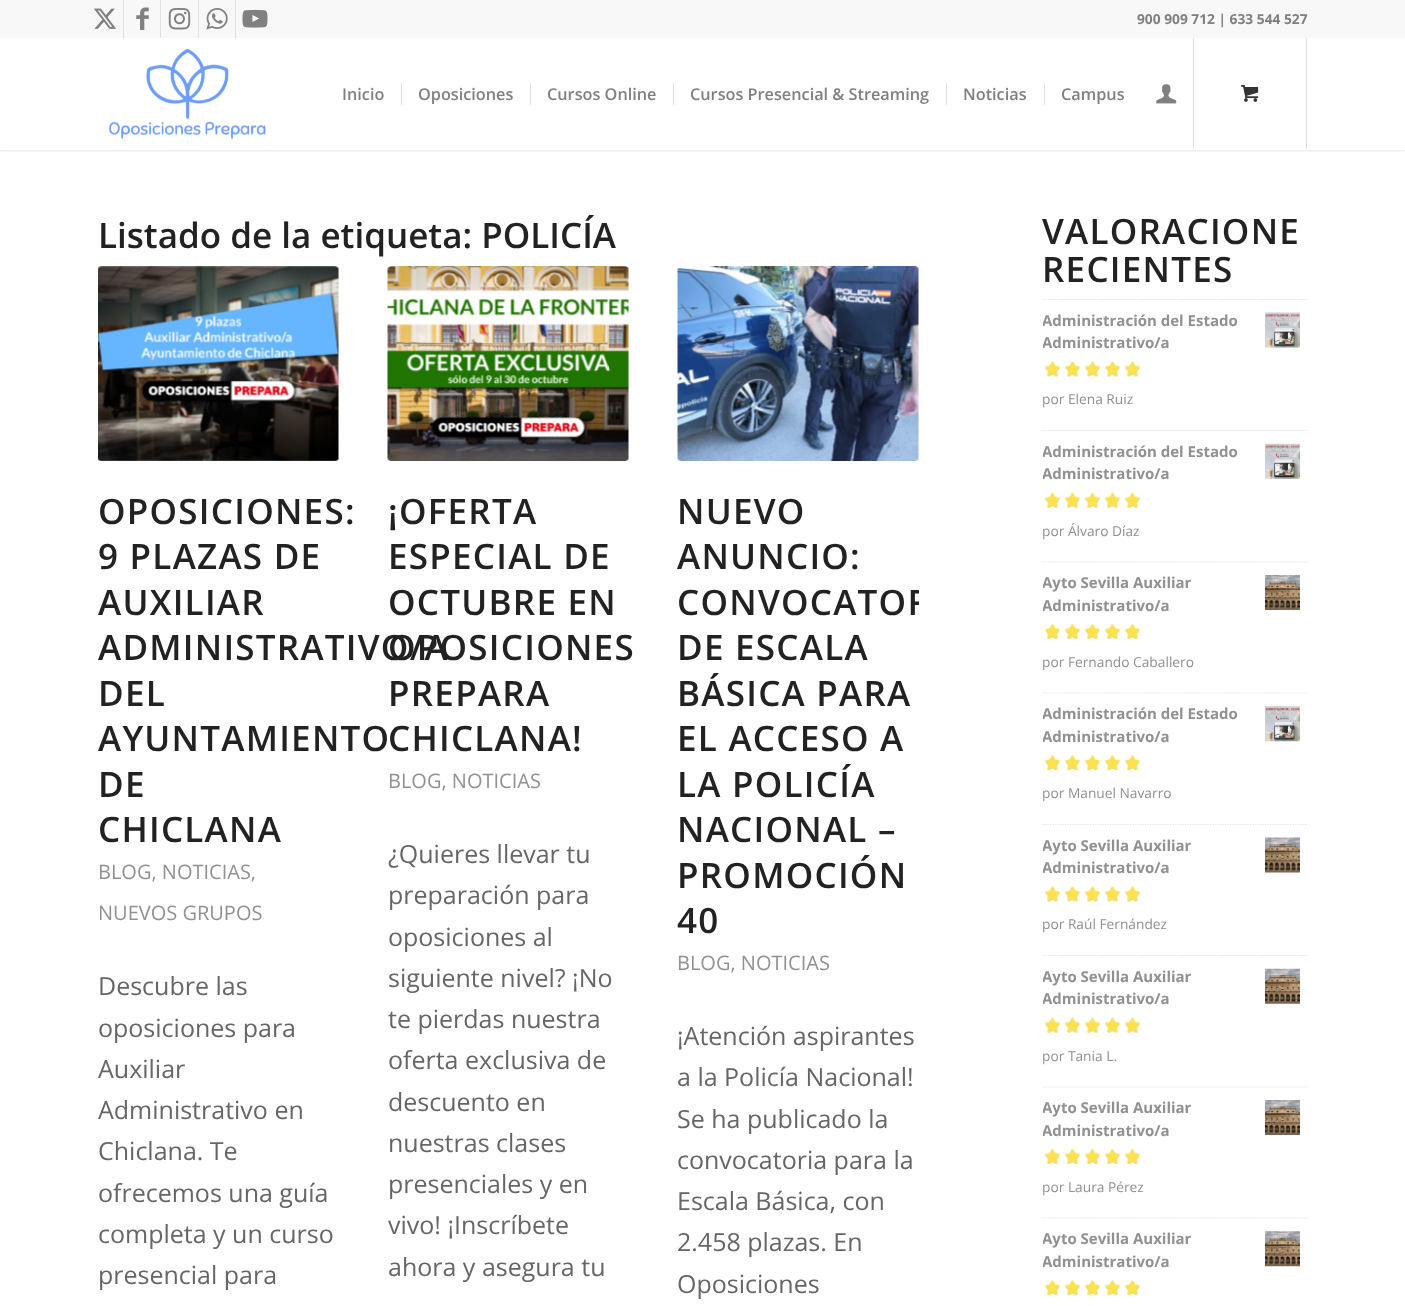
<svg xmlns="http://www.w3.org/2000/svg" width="1405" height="1306">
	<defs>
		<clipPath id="clip1"><rect x="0" y="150" width="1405" height="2" /></clipPath>
		<clipPath id="clip2"><rect x="98" y="266" width="821" height="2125" /></clipPath>
		<clipPath id="clip3"><rect x="1043" y="300" width="265" height="130" /></clipPath>
		<clipPath id="clip4"><rect x="1043" y="431" width="265" height="130" /></clipPath>
		<clipPath id="clip5"><rect x="1043" y="563" width="265" height="130" /></clipPath>
		<clipPath id="clip6"><rect x="1043" y="694" width="265" height="130" /></clipPath>
		<clipPath id="clip7"><rect x="1043" y="825" width="265" height="130" /></clipPath>
		<clipPath id="clip8"><rect x="1043" y="956" width="265" height="130" /></clipPath>
		<clipPath id="clip9"><rect x="1043" y="1088" width="265" height="130" /></clipPath>
		<clipPath id="clip10"><rect x="1043" y="1219" width="265" height="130" /></clipPath>
	</defs>
	<rect width="100%" height="100%" fill="#FFFFFF" />
	<g clip-path="url(#clip1)">
		<rect x="-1" y="-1" width="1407" height="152" fill="#000000" fill-opacity="0.1" filter="blur(1px)" />
	</g>
	<rect x="0" y="0" width="1405" height="38" fill="#F8F8F8" />
	<rect x="123" y="0" width="1" height="38" fill="#E1E1E1" />
	<image x="94" y="8" width="23" height="21" href="assets/img1.png" />
	<rect x="160" y="0" width="1" height="38" fill="#E1E1E1" />
	<image x="136" y="7" width="13" height="23" href="assets/img2.png" />
	<rect x="198" y="0" width="1" height="38" fill="#E1E1E1" />
	<image x="168" y="8" width="23" height="22" href="assets/img3.png" />
	<rect x="235" y="0" width="1" height="38" fill="#E1E1E1" />
	<image x="206" y="8" width="22" height="22" href="assets/img4.png" />
	<image x="242" y="9" width="26" height="19" href="assets/img5.png" />
	<text x="1137" y="24" font-family="Open Sans" font-size="13.75" font-weight="700" fill="#808080">900 909 712 | 633 544 527</text>
	<image x="109" y="48" width="157" height="92" href="assets/img6.png" />
	<g font-family="Open Sans" font-size="16.25" font-weight="600" fill="#808080">
		<text x="342" y="100">Inicio</text>
		<text x="418" y="100">Oposiciones</text>
	</g>
	<rect x="401" y="83" width="1" height="22" fill="#E1E1E1" />
	<text x="547" y="100" font-family="Open Sans" font-size="16.25" font-weight="600" fill="#808080">Cursos Online</text>
	<rect x="530" y="83" width="1" height="22" fill="#E1E1E1" />
	<text x="690" y="100" font-family="Open Sans" font-size="16.25" font-weight="600" fill="#808080">Cursos Presencial &amp; Streaming</text>
	<rect x="673" y="83" width="1" height="22" fill="#E1E1E1" />
	<text x="963" y="100" font-family="Open Sans" font-size="16.25" font-weight="600" fill="#808080">Noticias</text>
	<rect x="946" y="83" width="1" height="22" fill="#E1E1E1" />
	<text x="1061" y="100" font-family="Open Sans" font-size="16.25" font-weight="600" fill="#808080">Campus</text>
	<rect x="1044" y="83" width="1" height="22" fill="#E1E1E1" />
	<image x="1156" y="84" width="21" height="20" href="assets/img7.png" />
	<rect x="1306" y="38" width="1" height="111" fill="#E1E1E1" />
	<rect x="1193" y="38" width="1" height="111" fill="#E1E1E1" />
	<image x="1241" y="85" width="18" height="17" href="assets/img8.png" />
	<text x="98" y="248" font-family="Open Sans" font-size="35" font-weight="600" fill="#222222">Listado de la etiqueta: POLICÍA</text>
	<rect x="98" y="266" width="241" height="195" rx="4" fill="#FCFCFC" />
	<image x="98" y="266" width="241" height="195" href="assets/img9.png" />
	<g font-family="Open Sans" font-size="35" font-weight="600" letter-spacing="1.25" fill="#222222">
		<text x="98" y="524">OPOSICIONES:</text>
		<text x="98" y="569">9 PLAZAS DE</text>
		<text x="98" y="615">AUXILIAR</text>
		<text x="98" y="660">ADMINISTRATIVO/A</text>
		<text x="98" y="706">DEL</text>
		<text x="98" y="751">AYUNTAMIENTO</text>
		<text x="98" y="797">DE</text>
		<text x="98" y="842">CHICLANA</text>
	</g>
	<g font-family="Open Sans" font-size="20" fill="#919191">
		<text x="98" y="879">BLOG, NOTICIAS,</text>
		<text x="98" y="920">NUEVOS GRUPOS</text>
	</g>
	<g font-family="Open Sans" font-size="25" fill="#666666">
		<text x="98" y="995">Descubre las</text>
		<text x="98" y="1037">oposiciones para</text>
		<text x="98" y="1078">Auxiliar</text>
		<text x="98" y="1119">Administrativo en</text>
		<text x="98" y="1160">Chiclana. Te</text>
		<text x="98" y="1202">ofrecemos una guía</text>
		<text x="98" y="1243">completa y un curso</text>
		<text x="98" y="1284">presencial para</text>
	</g>
	<rect x="388" y="266" width="241" height="195" rx="4" fill="#FCFCFC" />
	<image x="387" y="266" width="242" height="195" href="assets/img10.png" />
	<g font-family="Open Sans" font-size="35" font-weight="600" letter-spacing="1.25" fill="#222222">
		<text x="388" y="524">¡OFERTA</text>
		<text x="388" y="569">ESPECIAL DE</text>
		<text x="388" y="615">OCTUBRE EN</text>
		<text x="388" y="660">OPOSICIONES</text>
		<text x="388" y="706">PREPARA</text>
		<text x="388" y="751">CHICLANA!</text>
	</g>
	<text x="388" y="788" font-family="Open Sans" font-size="20" fill="#919191">BLOG, NOTICIAS</text>
	<g font-family="Open Sans" font-size="25" fill="#666666">
		<text x="388" y="863">¿Quieres llevar tu</text>
		<text x="388" y="904">preparación para</text>
		<text x="388" y="946">oposiciones al</text>
		<text x="388" y="987">siguiente nivel? ¡No</text>
		<text x="388" y="1028">te pierdas nuestra</text>
		<text x="388" y="1069">oferta exclusiva de</text>
		<text x="388" y="1111">descuento en</text>
		<text x="388" y="1152">nuestras clases</text>
		<text x="388" y="1193">presenciales y en</text>
		<text x="388" y="1234">vivo! ¡Inscríbete</text>
		<text x="388" y="1276">ahora y asegura tu</text>
	</g>
	<rect x="678" y="266" width="241" height="195" rx="4" fill="#FCFCFC" />
	<image x="677" y="266" width="242" height="195" href="assets/img11.png" />
	<g font-family="Open Sans" font-size="35" font-weight="600" letter-spacing="1.25" fill="#222222">
		<text x="677" y="524">NUEVO</text>
		<text x="677" y="569">ANUNCIO:</text>
	</g>
	<g clip-path="url(#clip2)">
		<text x="677" y="615" font-family="Open Sans" font-size="35" font-weight="600" letter-spacing="1.25" fill="#222222">CONVOCATOR</text>
	</g>
	<g font-family="Open Sans" font-size="35" font-weight="600" letter-spacing="1.25" fill="#222222">
		<text x="677" y="660">DE ESCALA</text>
		<text x="677" y="706">BÁSICA PARA</text>
		<text x="677" y="751">EL ACCESO A</text>
		<text x="677" y="797">LA POLICÍA</text>
		<text x="677" y="842">NACIONAL –</text>
		<text x="677" y="888">PROMOCIÓN</text>
		<text x="677" y="933">40</text>
	</g>
	<text x="677" y="970" font-family="Open Sans" font-size="20" fill="#919191">BLOG, NOTICIAS</text>
	<g font-family="Open Sans" font-size="25" fill="#666666">
		<text x="677" y="1045">¡Atención aspirantes</text>
		<text x="677" y="1086">a la Policía Nacional!</text>
		<text x="677" y="1128">Se ha publicado la</text>
		<text x="677" y="1169">convocatoria para la</text>
		<text x="677" y="1210">Escala Básica, con</text>
		<text x="677" y="1251">2.458 plazas. En</text>
		<text x="677" y="1293">Oposiciones</text>
	</g>
	<g font-family="Open Sans" font-size="35" font-weight="600" letter-spacing="1.25" fill="#222222">
		<text x="1042" y="244">VALORACIONE</text>
		<text x="1042" y="282">RECIENTES</text>
	</g>
	<path d="M1042.5 299.5H1307.5" fill="none" stroke="#E1E1E1" stroke-width="1.2" stroke-dasharray="1.25 1.25" />
	<g clip-path="url(#clip3)">
		<text x="1042" y="326" font-family="Open Sans" font-size="15" font-weight="700" fill="#919191">Administración del Estado</text>
	</g>
	<image x="1265" y="312" width="35" height="36" href="assets/img12.png" />
	<g clip-path="url(#clip3)">
		<text x="1042" y="348" font-family="Open Sans" font-size="15" font-weight="700" fill="#919191">Administrativo/a</text>
	</g>
	<image x="1046" y="362" width="93" height="15" href="assets/img13.png" />
	<image x="1044" y="361" width="97" height="16" href="assets/img14.png" />
	<text x="1042" y="404" font-family="Open Sans" font-size="13.75" fill="#919191">por Elena Ruiz</text>
	<path d="M1042.5 430.5H1307.5" fill="none" stroke="#E1E1E1" stroke-width="1.2" stroke-dasharray="1.25 1.25" />
	<g clip-path="url(#clip4)">
		<text x="1042" y="457" font-family="Open Sans" font-size="15" font-weight="700" fill="#919191">Administración del Estado</text>
	</g>
	<image x="1265" y="443" width="35" height="36" href="assets/img15.png" />
	<g clip-path="url(#clip4)">
		<text x="1042" y="479" font-family="Open Sans" font-size="15" font-weight="700" fill="#919191">Administrativo/a</text>
	</g>
	<image x="1046" y="493" width="93" height="15" href="assets/img16.png" />
	<image x="1044" y="492" width="97" height="16" href="assets/img17.png" />
	<text x="1042" y="536" font-family="Open Sans" font-size="13.75" fill="#919191">por Álvaro Díaz</text>
	<path d="M1042.5 562H1307.5" fill="none" stroke="#E1E1E1" stroke-width="1.2" stroke-dasharray="1.25 1.25" />
	<g clip-path="url(#clip5)">
		<text x="1042" y="588" font-family="Open Sans" font-size="15" font-weight="700" fill="#919191">Ayto Sevilla Auxiliar</text>
	</g>
	<image x="1265" y="575" width="35" height="35" href="assets/img18.png" />
	<g clip-path="url(#clip5)">
		<text x="1042" y="611" font-family="Open Sans" font-size="15" font-weight="700" fill="#919191">Administrativo/a</text>
	</g>
	<image x="1046" y="625" width="93" height="14" href="assets/img19.png" />
	<image x="1044" y="623" width="97" height="16" href="assets/img20.png" />
	<text x="1042" y="667" font-family="Open Sans" font-size="13.75" fill="#919191">por Fernando Caballero</text>
	<path d="M1042.5 693H1307.5" fill="none" stroke="#E1E1E1" stroke-width="1.2" stroke-dasharray="1.25 1.25" />
	<g clip-path="url(#clip6)">
		<text x="1042" y="719" font-family="Open Sans" font-size="15" font-weight="700" fill="#919191">Administración del Estado</text>
	</g>
	<image x="1265" y="706" width="35" height="36" href="assets/img21.png" />
	<g clip-path="url(#clip6)">
		<text x="1042" y="742" font-family="Open Sans" font-size="15" font-weight="700" fill="#919191">Administrativo/a</text>
	</g>
	<image x="1046" y="756" width="93" height="15" href="assets/img22.png" />
	<image x="1044" y="754" width="97" height="17" href="assets/img23.png" />
	<text x="1042" y="798" font-family="Open Sans" font-size="13.75" fill="#919191">por Manuel Navarro</text>
	<path d="M1042.5 824.5H1307.5" fill="none" stroke="#E1E1E1" stroke-width="1.2" stroke-dasharray="1.25 1.25" />
	<g clip-path="url(#clip7)">
		<text x="1042" y="851" font-family="Open Sans" font-size="15" font-weight="700" fill="#919191">Ayto Sevilla Auxiliar</text>
	</g>
	<image x="1265" y="837" width="35" height="36" href="assets/img24.png" />
	<g clip-path="url(#clip7)">
		<text x="1042" y="873" font-family="Open Sans" font-size="15" font-weight="700" fill="#919191">Administrativo/a</text>
	</g>
	<image x="1046" y="887" width="93" height="15" href="assets/img25.png" />
	<image x="1044" y="886" width="97" height="16" href="assets/img26.png" />
	<text x="1042" y="929" font-family="Open Sans" font-size="13.75" fill="#919191">por Raúl Fernández</text>
	<path d="M1042.5 955.5H1307.5" fill="none" stroke="#E1E1E1" stroke-width="1.2" stroke-dasharray="1.25 1.25" />
	<g clip-path="url(#clip8)">
		<text x="1042" y="982" font-family="Open Sans" font-size="15" font-weight="700" fill="#919191">Ayto Sevilla Auxiliar</text>
	</g>
	<image x="1265" y="968" width="35" height="36" href="assets/img27.png" />
	<g clip-path="url(#clip8)">
		<text x="1042" y="1004" font-family="Open Sans" font-size="15" font-weight="700" fill="#919191">Administrativo/a</text>
	</g>
	<image x="1046" y="1018" width="93" height="15" href="assets/img28.png" />
	<image x="1044" y="1017" width="97" height="16" href="assets/img29.png" />
	<text x="1042" y="1061" font-family="Open Sans" font-size="13.75" fill="#919191">por Tania L.</text>
	<path d="M1042.5 1087H1307.5" fill="none" stroke="#E1E1E1" stroke-width="1.2" stroke-dasharray="1.25 1.25" />
	<g clip-path="url(#clip9)">
		<text x="1042" y="1113" font-family="Open Sans" font-size="15" font-weight="700" fill="#919191">Ayto Sevilla Auxiliar</text>
	</g>
	<image x="1265" y="1100" width="35" height="35" href="assets/img18.png" />
	<g clip-path="url(#clip9)">
		<text x="1042" y="1136" font-family="Open Sans" font-size="15" font-weight="700" fill="#919191">Administrativo/a</text>
	</g>
	<image x="1046" y="1150" width="93" height="14" href="assets/img30.png" />
	<image x="1044" y="1148" width="97" height="16" href="assets/img31.png" />
	<text x="1042" y="1192" font-family="Open Sans" font-size="13.75" fill="#919191">por Laura Pérez</text>
	<path d="M1042.5 1218H1307.5" fill="none" stroke="#E1E1E1" stroke-width="1.2" stroke-dasharray="1.25 1.25" />
	<g clip-path="url(#clip10)">
		<text x="1042" y="1244" font-family="Open Sans" font-size="15" font-weight="700" fill="#919191">Ayto Sevilla Auxiliar</text>
	</g>
	<image x="1265" y="1231" width="35" height="36" href="assets/img32.png" />
	<g clip-path="url(#clip10)">
		<text x="1042" y="1267" font-family="Open Sans" font-size="15" font-weight="700" fill="#919191">Administrativo/a</text>
	</g>
	<image x="1046" y="1281" width="93" height="15" href="assets/img33.png" />
	<image x="1044" y="1279" width="97" height="17" href="assets/img34.png" />
</svg>
